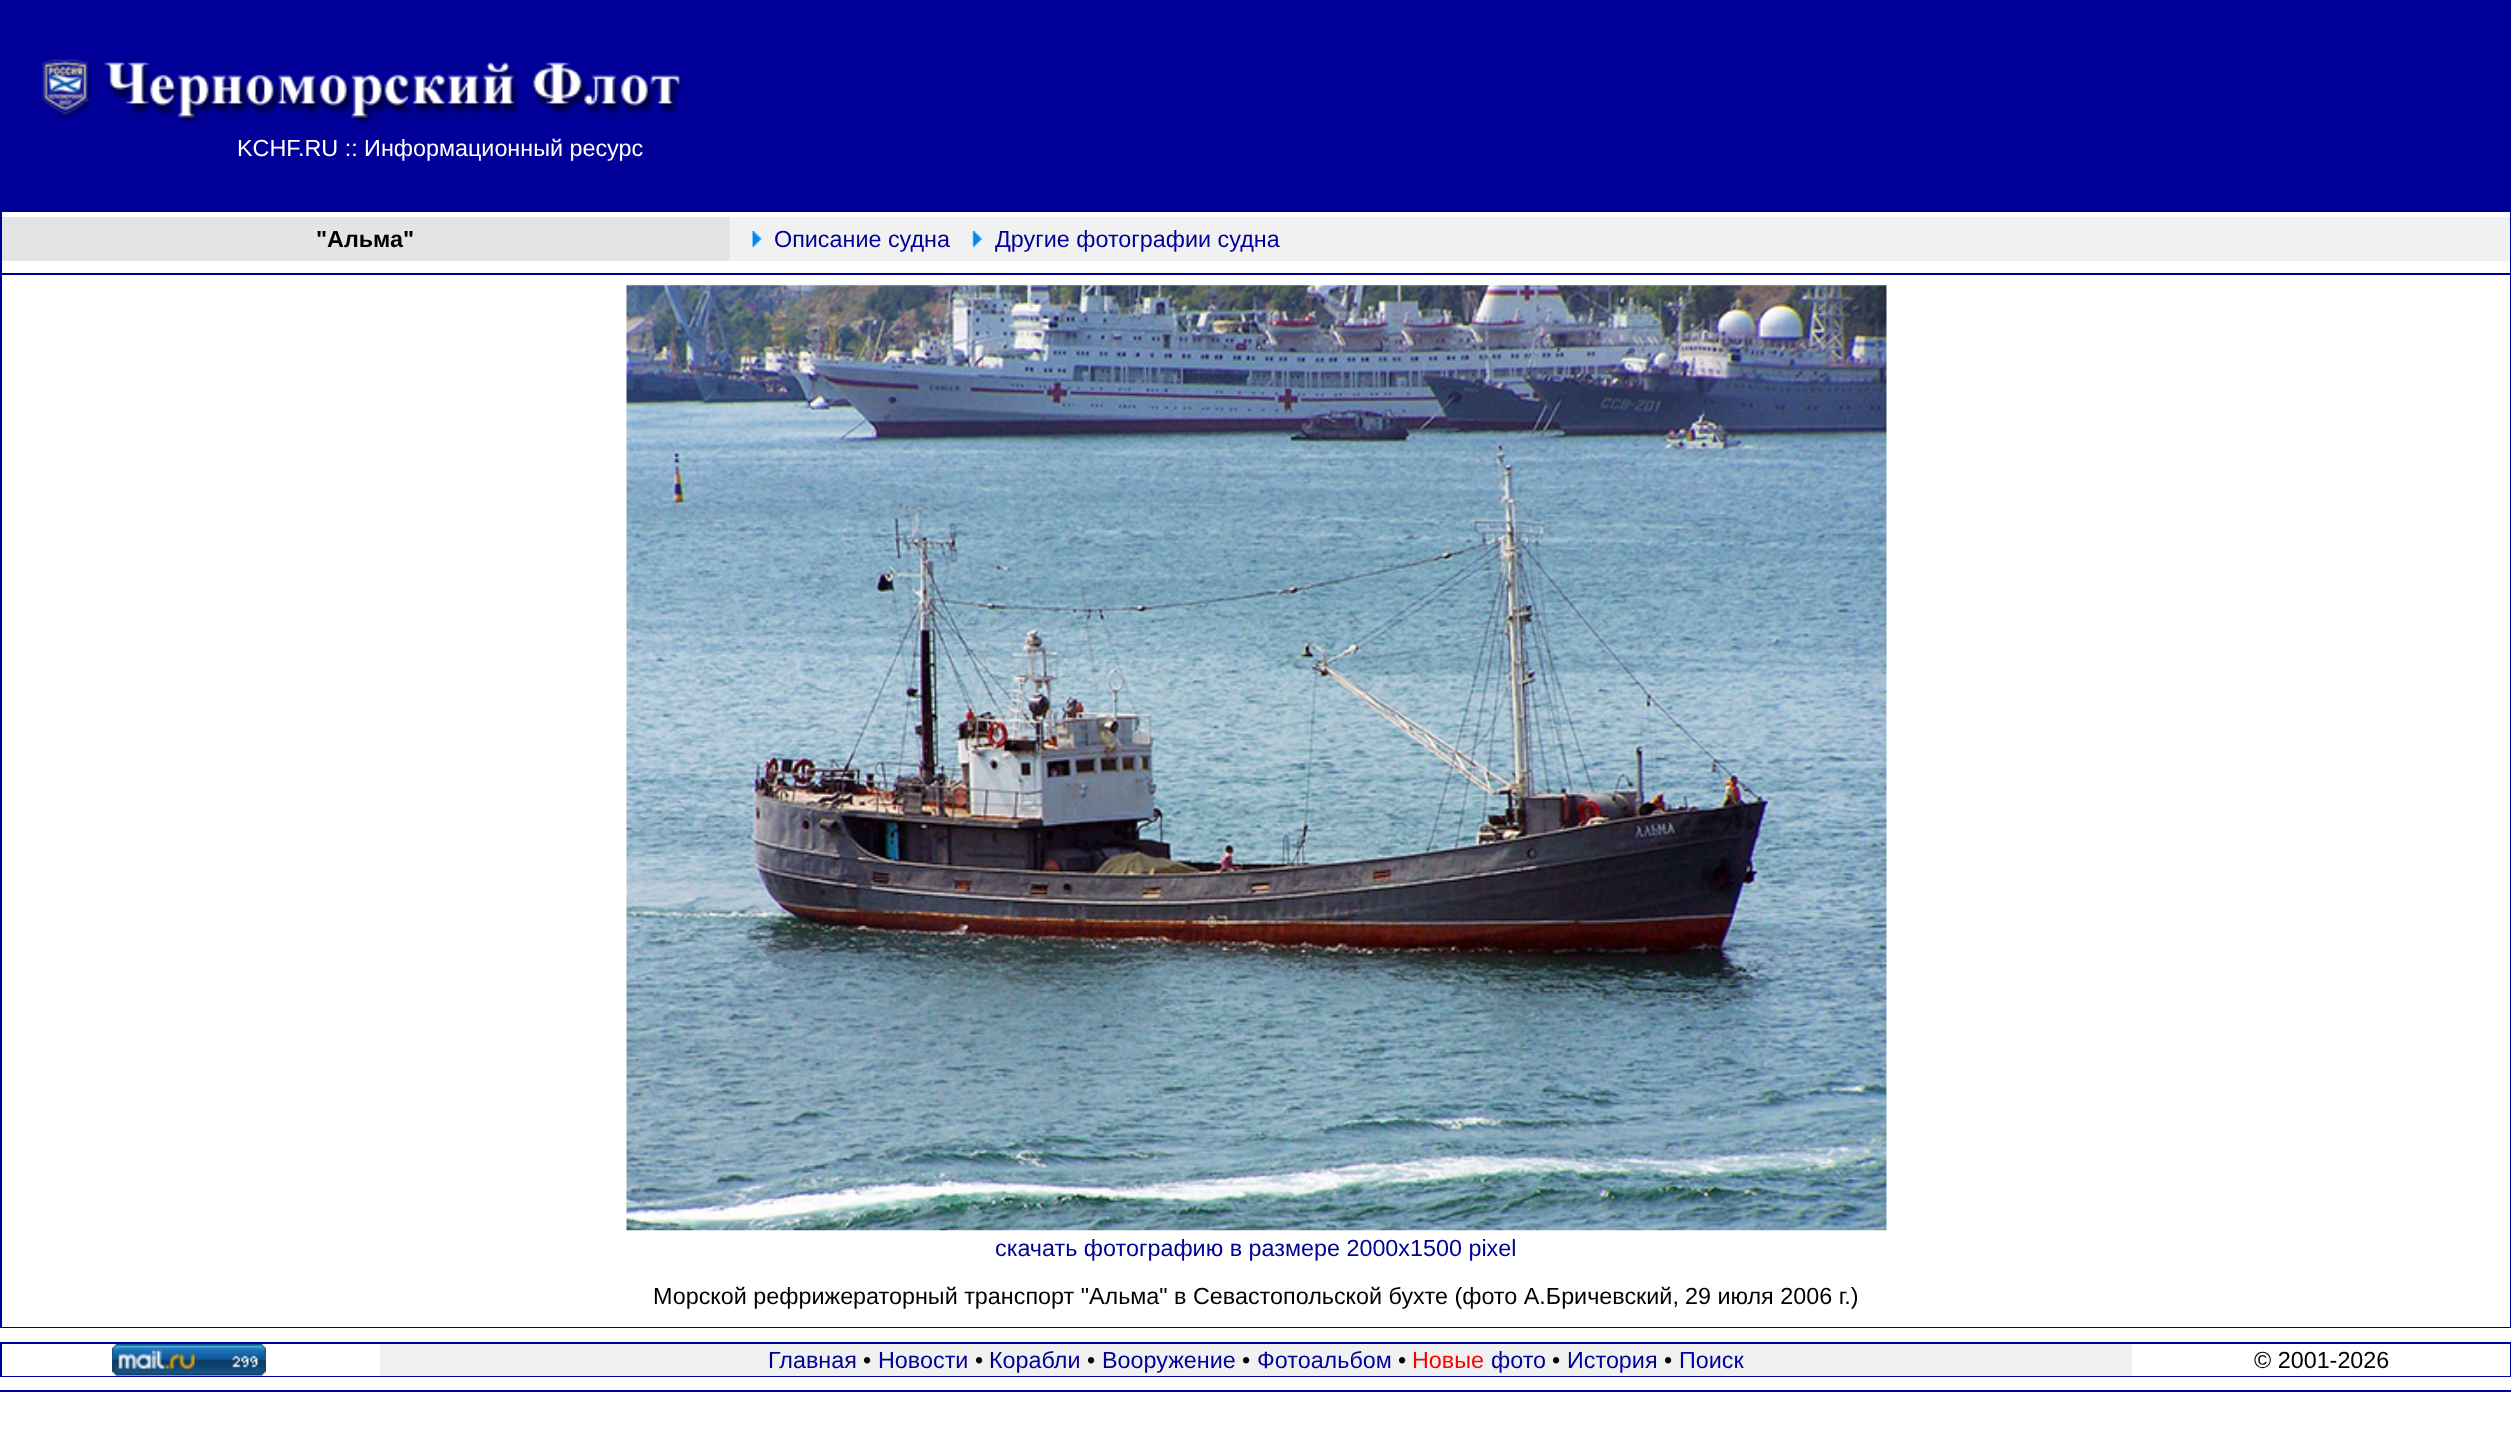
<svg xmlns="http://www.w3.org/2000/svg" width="2511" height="1446">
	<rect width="100%" height="100%" fill="#FFFFFF" />
	<rect x="0" y="0" width="2511" height="1328" fill="#000099" />
	<rect x="2" y="212" width="2508" height="1115" fill="#FFFFFF" />
	<image x="41" y="59" width="642" height="62" href="assets/img1.png" />
	<text x="237" y="156" font-family="Liberation Sans" font-size="23.35" fill="#FFFFFF">KCHF.RU :: Информационный ресурс</text>
	<rect x="2" y="217" width="728" height="44" fill="#E4E4E4" />
	<text x="316" y="247" font-family="Liberation Sans" font-size="23.35" font-weight="700" fill="#000000">"Альма"</text>
	<rect x="730" y="217" width="1780" height="44" fill="#F1F1F1" />
	<image x="752" y="231" width="10" height="16" href="assets/img2.png" />
	<text x="774" y="247" font-family="Liberation Sans" font-size="23.35" fill="#000099">Описание судна</text>
	<image x="972" y="231" width="11" height="16" href="assets/img3.png" />
	<text x="995" y="247" font-family="Liberation Sans" font-size="23.35" fill="#000099">Другие фотографии судна</text>
	<rect x="2" y="273" width="2508" height="2" fill="#000099" />
	<image x="626" y="285" width="1261" height="946" href="assets/img4.png" />
	<text x="995" y="1256" font-family="Liberation Sans" font-size="23.35" fill="#000099">скачать фотографию в размере 2000х1500 pixel</text>
	<g font-family="Liberation Sans" font-size="23.35" fill="#000000">
		<text x="653" y="1304">Морской рефрижераторный транспорт "Альма" в Севастопольской бухте (фото А.Бричевский,</text>
		<text x="1685" y="1304">29 июля 2006 г.)</text>
	</g>
	<rect x="0" y="1342" width="2511" height="35" fill="#000099" />
	<rect x="2" y="1344" width="2508" height="32" fill="#FFFFFF" />
	<image x="112" y="1344" width="154" height="32" href="assets/img5.png" />
	<rect x="380" y="1344" width="1752" height="32" fill="#F1F1F1" />
	<text x="768" y="1368" font-family="Liberation Sans" font-size="23.35" fill="#000099">Главная</text>
	<text x="863" y="1368" font-family="Liberation Sans" font-size="23.35" fill="#000000">•</text>
	<text x="878" y="1368" font-family="Liberation Sans" font-size="23.35" fill="#000099">Новости</text>
	<text x="975" y="1368" font-family="Liberation Sans" font-size="23.35" fill="#000000">•</text>
	<text x="989" y="1368" font-family="Liberation Sans" font-size="23.35" fill="#000099">Корабли</text>
	<text x="1087" y="1368" font-family="Liberation Sans" font-size="23.35" fill="#000000">•</text>
	<text x="1102" y="1368" font-family="Liberation Sans" font-size="23.35" fill="#000099">Вооружение</text>
	<text x="1242" y="1368" font-family="Liberation Sans" font-size="23.35" fill="#000000">•</text>
	<text x="1257" y="1368" font-family="Liberation Sans" font-size="23.35" fill="#000099">Фотоальбом</text>
	<text x="1398" y="1368" font-family="Liberation Sans" font-size="23.35" fill="#000000">•</text>
	<text x="1412" y="1368" font-family="Liberation Sans" font-size="23.35" fill="#FF0000">Новые</text>
	<text x="1491" y="1368" font-family="Liberation Sans" font-size="23.35" fill="#000099">фото</text>
	<text x="1552" y="1368" font-family="Liberation Sans" font-size="23.35" fill="#000000">•</text>
	<text x="1567" y="1368" font-family="Liberation Sans" font-size="23.35" fill="#000099">История</text>
	<text x="1664" y="1368" font-family="Liberation Sans" font-size="23.35" fill="#000000">•</text>
	<text x="1679" y="1368" font-family="Liberation Sans" font-size="23.35" fill="#000099">Поиск</text>
	<text x="2254" y="1368" font-family="Liberation Sans" font-size="23.35" fill="#000000">© 2001-2026</text>
	<rect x="0" y="1390" width="2511" height="2" fill="#000099" />
</svg>
